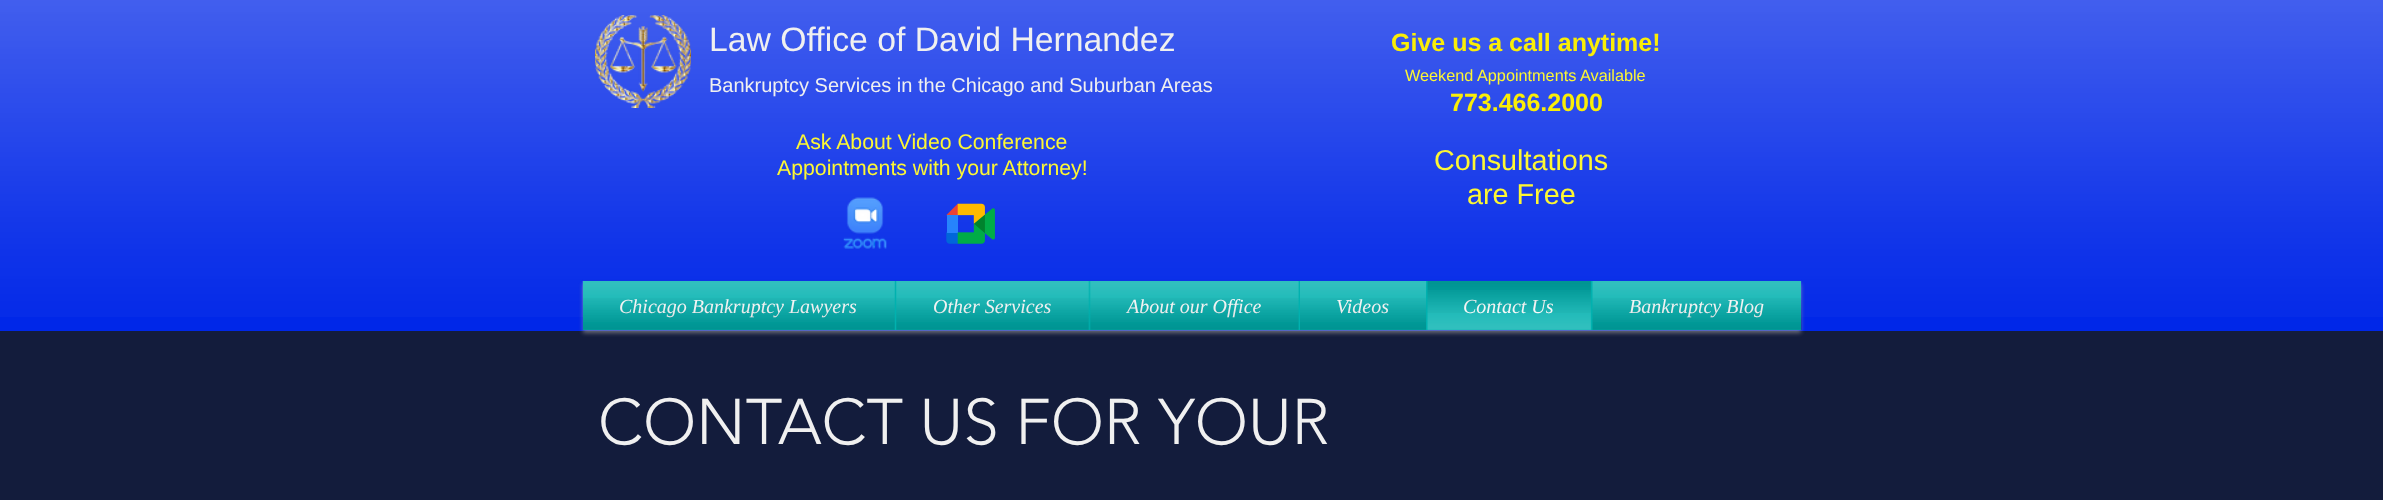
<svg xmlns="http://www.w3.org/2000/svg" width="2383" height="500">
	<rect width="100%" height="100%" fill="#131C3C" />
	<rect x="0" y="0" width="2383" height="331" fill="#0027E8" />
	<image x="0" y="0" width="2383" height="317" href="assets/img1.png" />
	<image x="595" y="15" width="96" height="93" href="assets/img2.png" />
	<text x="709" y="51" font-family="Liberation Sans" font-size="33.75" fill="#F0F0F0">Law Office of David Hernandez</text>
	<text x="709" y="92" font-family="Liberation Sans" font-size="20" fill="#F0F0F0">Bankruptcy Services in the Chicago and Suburban Areas</text>
	<text x="1391" y="51" font-family="Liberation Sans" font-size="25" font-weight="700" fill="#FAEE07">Give us a call anytime!</text>
	<text x="1405" y="81" font-family="Liberation Sans" font-size="16.25" fill="#FDF733">Weekend Appointments Available</text>
	<text x="1450" y="111" font-family="Liberation Sans" font-size="25" font-weight="700" fill="#FAEE07">773.466.2000</text>
	<g font-family="Liberation Sans" font-size="21.25" fill="#FDF733">
		<text x="796" y="149">Ask About Video Conference</text>
		<text x="777" y="175">Appointments with your Attorney!</text>
	</g>
	<g font-family="Liberation Sans" font-size="28.75" fill="#FDF733">
		<text x="1434" y="170">Consultations</text>
		<text x="1467" y="204">are Free</text>
	</g>
	<image x="843" y="197" width="44" height="52" href="assets/img3.png" />
	<image x="946" y="203" width="49" height="41" href="assets/img4.png" />
	<rect x="583" y="284" width="1218" height="49" fill="#A29E9E" fill-opacity="0.6" filter="blur(2px)" />
	<image x="582" y="281" width="1" height="36" href="assets/img5.png" />
	<image x="1801" y="300" width="1" height="30" href="assets/img6.png" />
	<rect x="583" y="281" width="1218" height="49" fill="#01B1AF" />
	<text x="619" y="313" font-family="Liberation Serif" font-size="20" font-style="italic" fill="#FFFFFF">Chicago Bankruptcy Lawyers</text>
	<image x="583" y="281" width="312" height="41" href="assets/img7.png" />
	<image x="583" y="298" width="312" height="32" href="assets/img8.png" />
	<text x="933" y="313" font-family="Liberation Serif" font-size="20" font-style="italic" fill="#FFFFFF">Other Services</text>
	<image x="896" y="281" width="193" height="41" href="assets/img9.png" />
	<image x="896" y="298" width="193" height="32" href="assets/img10.png" />
	<text x="1127" y="313" font-family="Liberation Serif" font-size="20" font-style="italic" fill="#FFFFFF">About our Office</text>
	<image x="1089" y="281" width="210" height="41" href="assets/img11.png" />
	<image x="1089" y="298" width="210" height="32" href="assets/img12.png" />
	<text x="1336" y="313" font-family="Liberation Serif" font-size="20" font-style="italic" fill="#FFFFFF">Videos</text>
	<image x="1300" y="281" width="126" height="41" href="assets/img13.png" />
	<image x="1300" y="298" width="126" height="32" href="assets/img14.png" />
	<text x="1463" y="313" font-family="Liberation Serif" font-size="20" font-style="italic" fill="#FFFFFF">Contact Us</text>
	<image x="1427" y="281" width="164" height="32" href="assets/img15.png" />
	<image x="1427" y="290" width="164" height="40" href="assets/img16.png" />
	<text x="1629" y="313" font-family="Liberation Serif" font-size="20" font-style="italic" fill="#FFFFFF">Bankruptcy Blog</text>
	<image x="1592" y="281" width="210" height="41" href="assets/img17.png" />
	<image x="1592" y="298" width="210" height="32" href="assets/img18.png" />
	<text x="598" y="444" font-family="'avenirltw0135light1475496'" font-size="63.75" font-weight="300" fill="#F0F0F0">CONTACT US FOR YOUR</text>
</svg>
